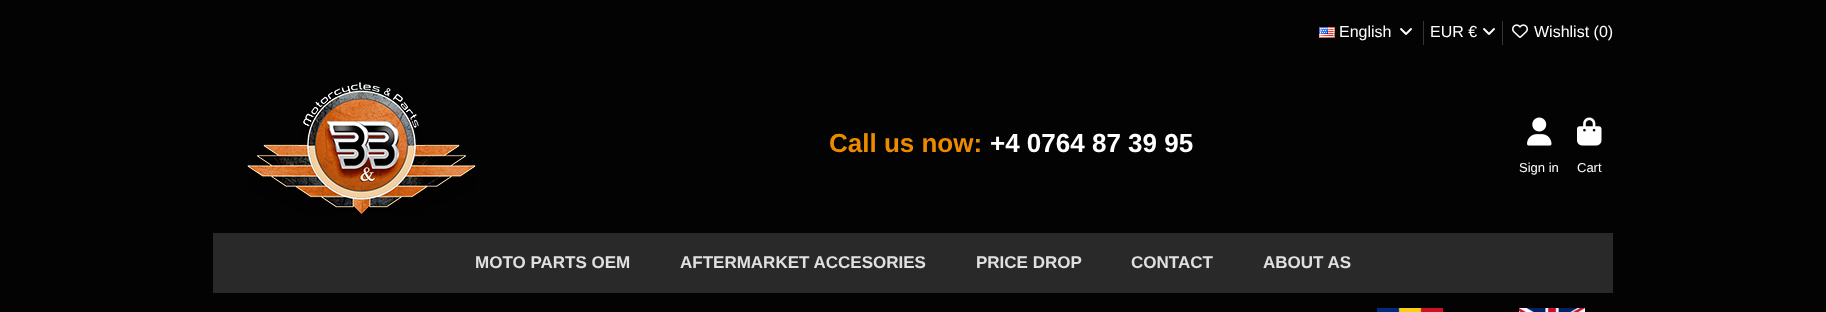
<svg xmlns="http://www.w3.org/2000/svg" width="1826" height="312">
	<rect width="100%" height="100%" fill="#030303" />
	<image x="1319" y="27" width="16" height="11" href="assets/img1.png" />
	<text x="1339" y="37" font-family="Liberation Sans" font-size="16" fill="#FFFFFF">English</text>
	<image x="1400" y="28" width="12" height="7" href="assets/img2.png" />
	<rect x="1423" y="21" width="1" height="24" fill="#353535" />
	<text x="1430" y="37" font-family="Liberation Sans" font-size="16" fill="#FFFFFF">EUR €</text>
	<image x="1483" y="28" width="12" height="7" href="assets/img2.png" />
	<rect x="1502" y="21" width="1" height="24" fill="#353535" />
	<image x="1512" y="24" width="16" height="14" href="assets/img3.png" />
	<text x="1534" y="37" font-family="Liberation Sans" font-size="16" fill="#FFFFFF">Wishlist (0)</text>
	<image x="247" y="82" width="229" height="132" href="assets/img4.png" />
	<text x="829" y="152" font-family="Liberation Sans" font-size="26" font-weight="700" fill="#ED8B00">Call us now:</text>
	<text x="990" y="152" font-family="Liberation Sans" font-size="26" font-weight="700" fill="#FFFFFF">+4 0764 87 39 95</text>
	<image x="1527" y="117" width="25" height="29" href="assets/img5.png" />
	<text x="1519" y="172" font-family="Liberation Sans" font-size="13" fill="#FFFFFF">Sign in</text>
	<image x="1577" y="117" width="25" height="29" href="assets/img6.png" />
	<text x="1577" y="172" font-family="Liberation Sans" font-size="13" fill="#FFFFFF">Cart</text>
	<rect x="213" y="233" width="1400" height="60" fill="#292929" />
	<g font-family="Liberation Sans" font-size="17" font-weight="700" fill="#E0E0E0">
		<text x="475" y="268">MOTO PARTS OEM</text>
		<text x="680" y="268">AFTERMARKET ACCESORIES</text>
		<text x="976" y="268">PRICE DROP</text>
		<text x="1131" y="268">CONTACT</text>
		<text x="1263" y="268">ABOUT AS</text>
	</g>
	<image x="1377" y="308" width="66" height="4" href="assets/img7.png" />
	<image x="1519" y="308" width="66" height="4" href="assets/img8.png" />
</svg>
